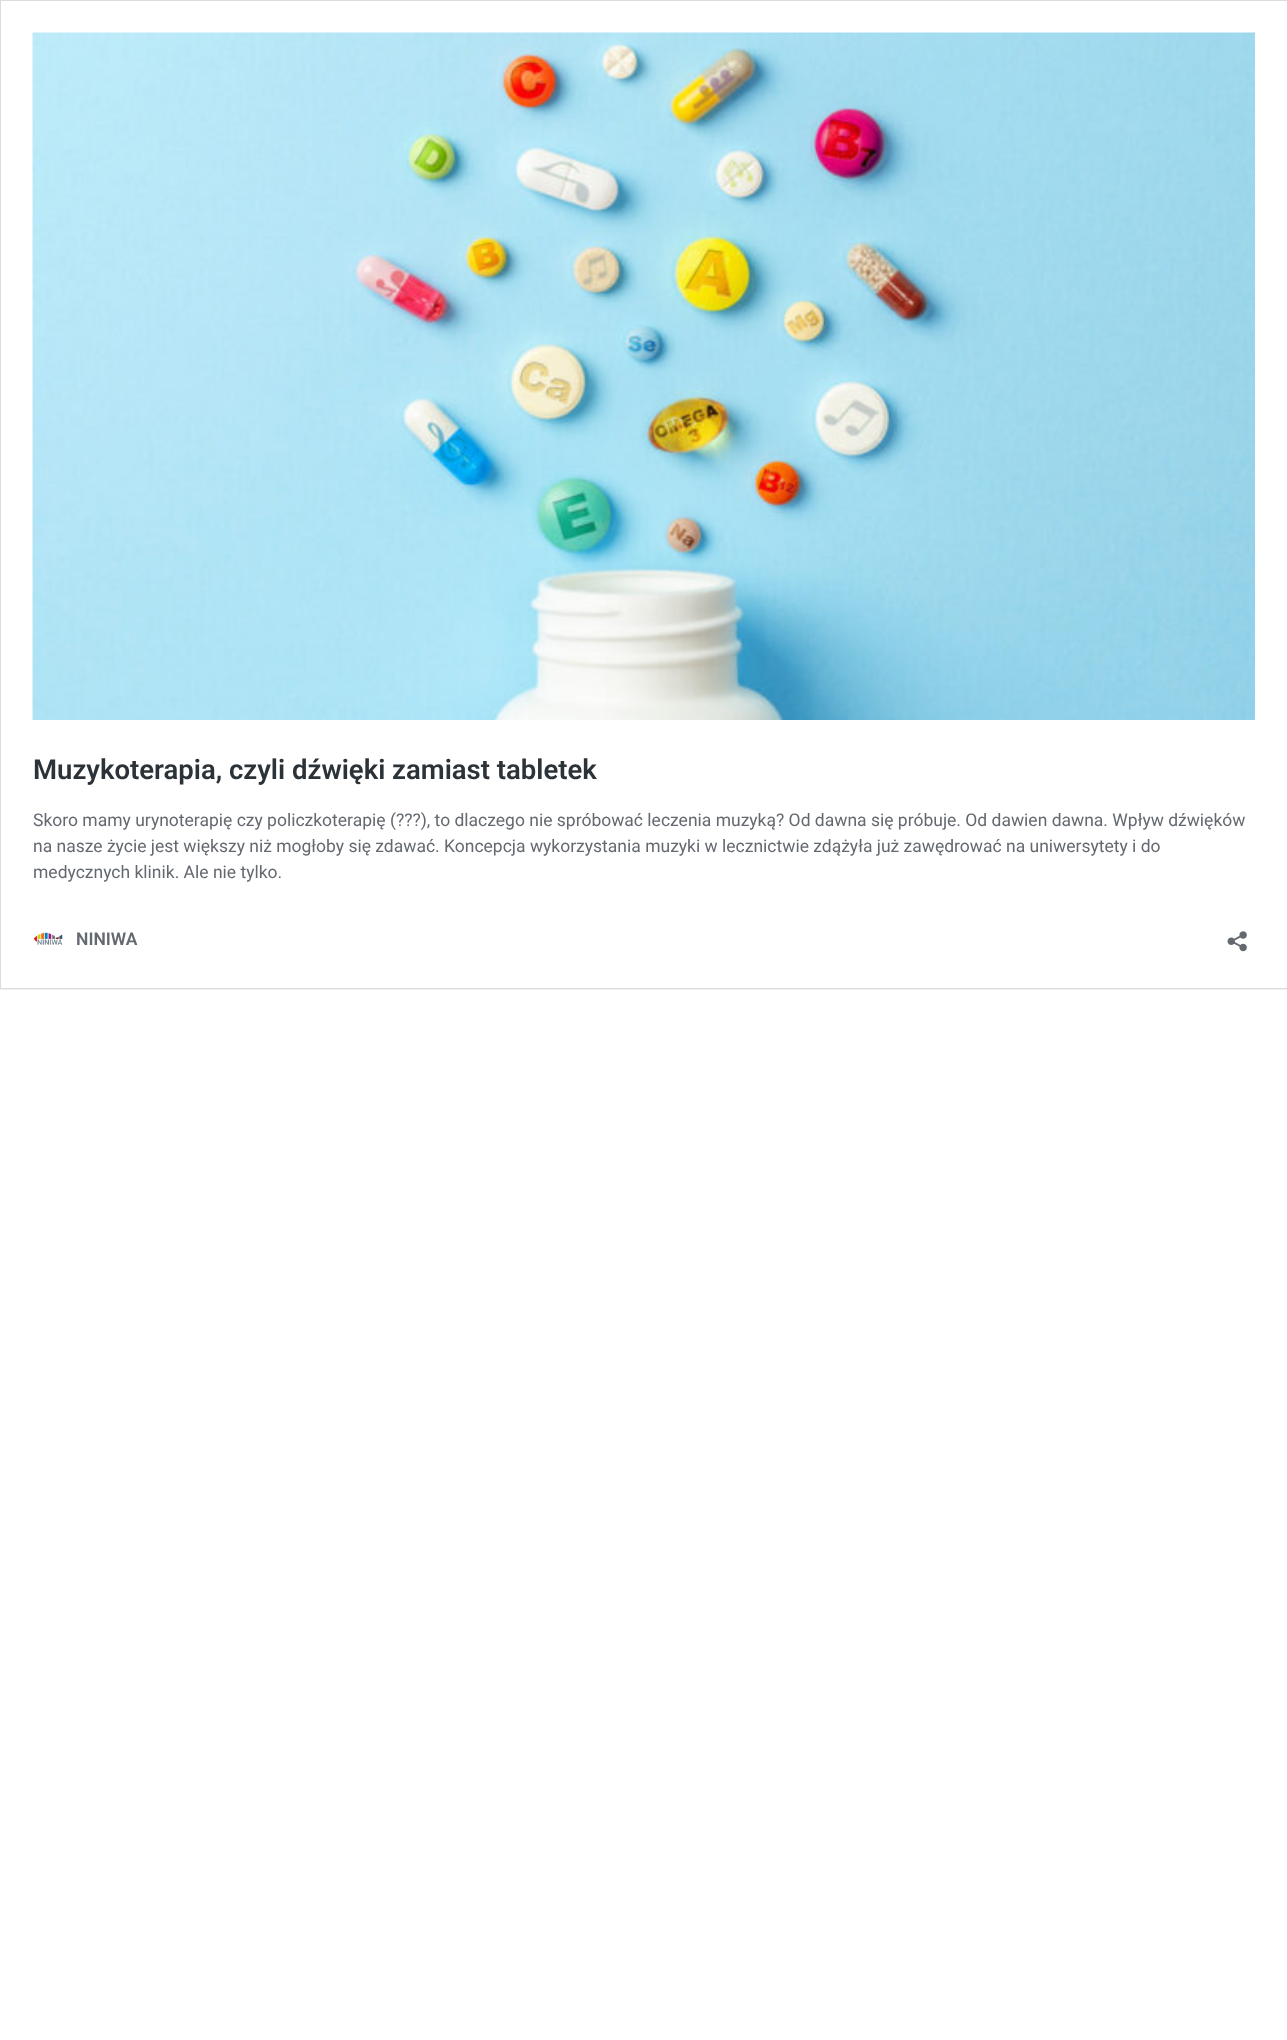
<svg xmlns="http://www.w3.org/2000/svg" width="1287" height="2040">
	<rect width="100%" height="100%" fill="#FFFFFF" />
	<rect x="0" y="1" width="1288" height="989" fill="#000000" fill-opacity="0.05" filter="blur(0.5px)" />
	<rect x="0.5" y="0.5" width="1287" height="988" fill="#FFFFFF" stroke="#DCDCDE" />
	<image x="32" y="32" width="1223" height="688" href="assets/img1.png" />
	<text x="33" y="779" font-family="Roboto" font-size="27.5" font-weight="600" fill="#2C3338">Muzykoterapia, czyli dźwięki zamiast tabletek</text>
	<g font-family="Roboto" font-size="17.5" fill="#646970">
		<text x="33" y="826">Skoro mamy urynoterapię czy policzkoterapię (???), to dlaczego nie spróbować leczenia muzyką? Od dawna się próbuje. Od dawien dawna. Wpływ dźwięków</text>
		<text x="33" y="852">na nasze życie jest większy niż mogłoby się zdawać. Koncepcja wykorzystania muzyki w lecznictwie zdążyła już zawędrować na uniwersytety i do</text>
		<text x="33" y="878">medycznych klinik. Ale nie tylko.</text>
	</g>
	<image x="34" y="932" width="29" height="13" href="assets/img2.png" />
	<text x="76" y="945" font-family="Roboto" font-size="17.5" font-weight="600" fill="#646970">NINIWA</text>
	<image x="1227" y="931" width="20" height="21" href="assets/img3.png" />
</svg>
